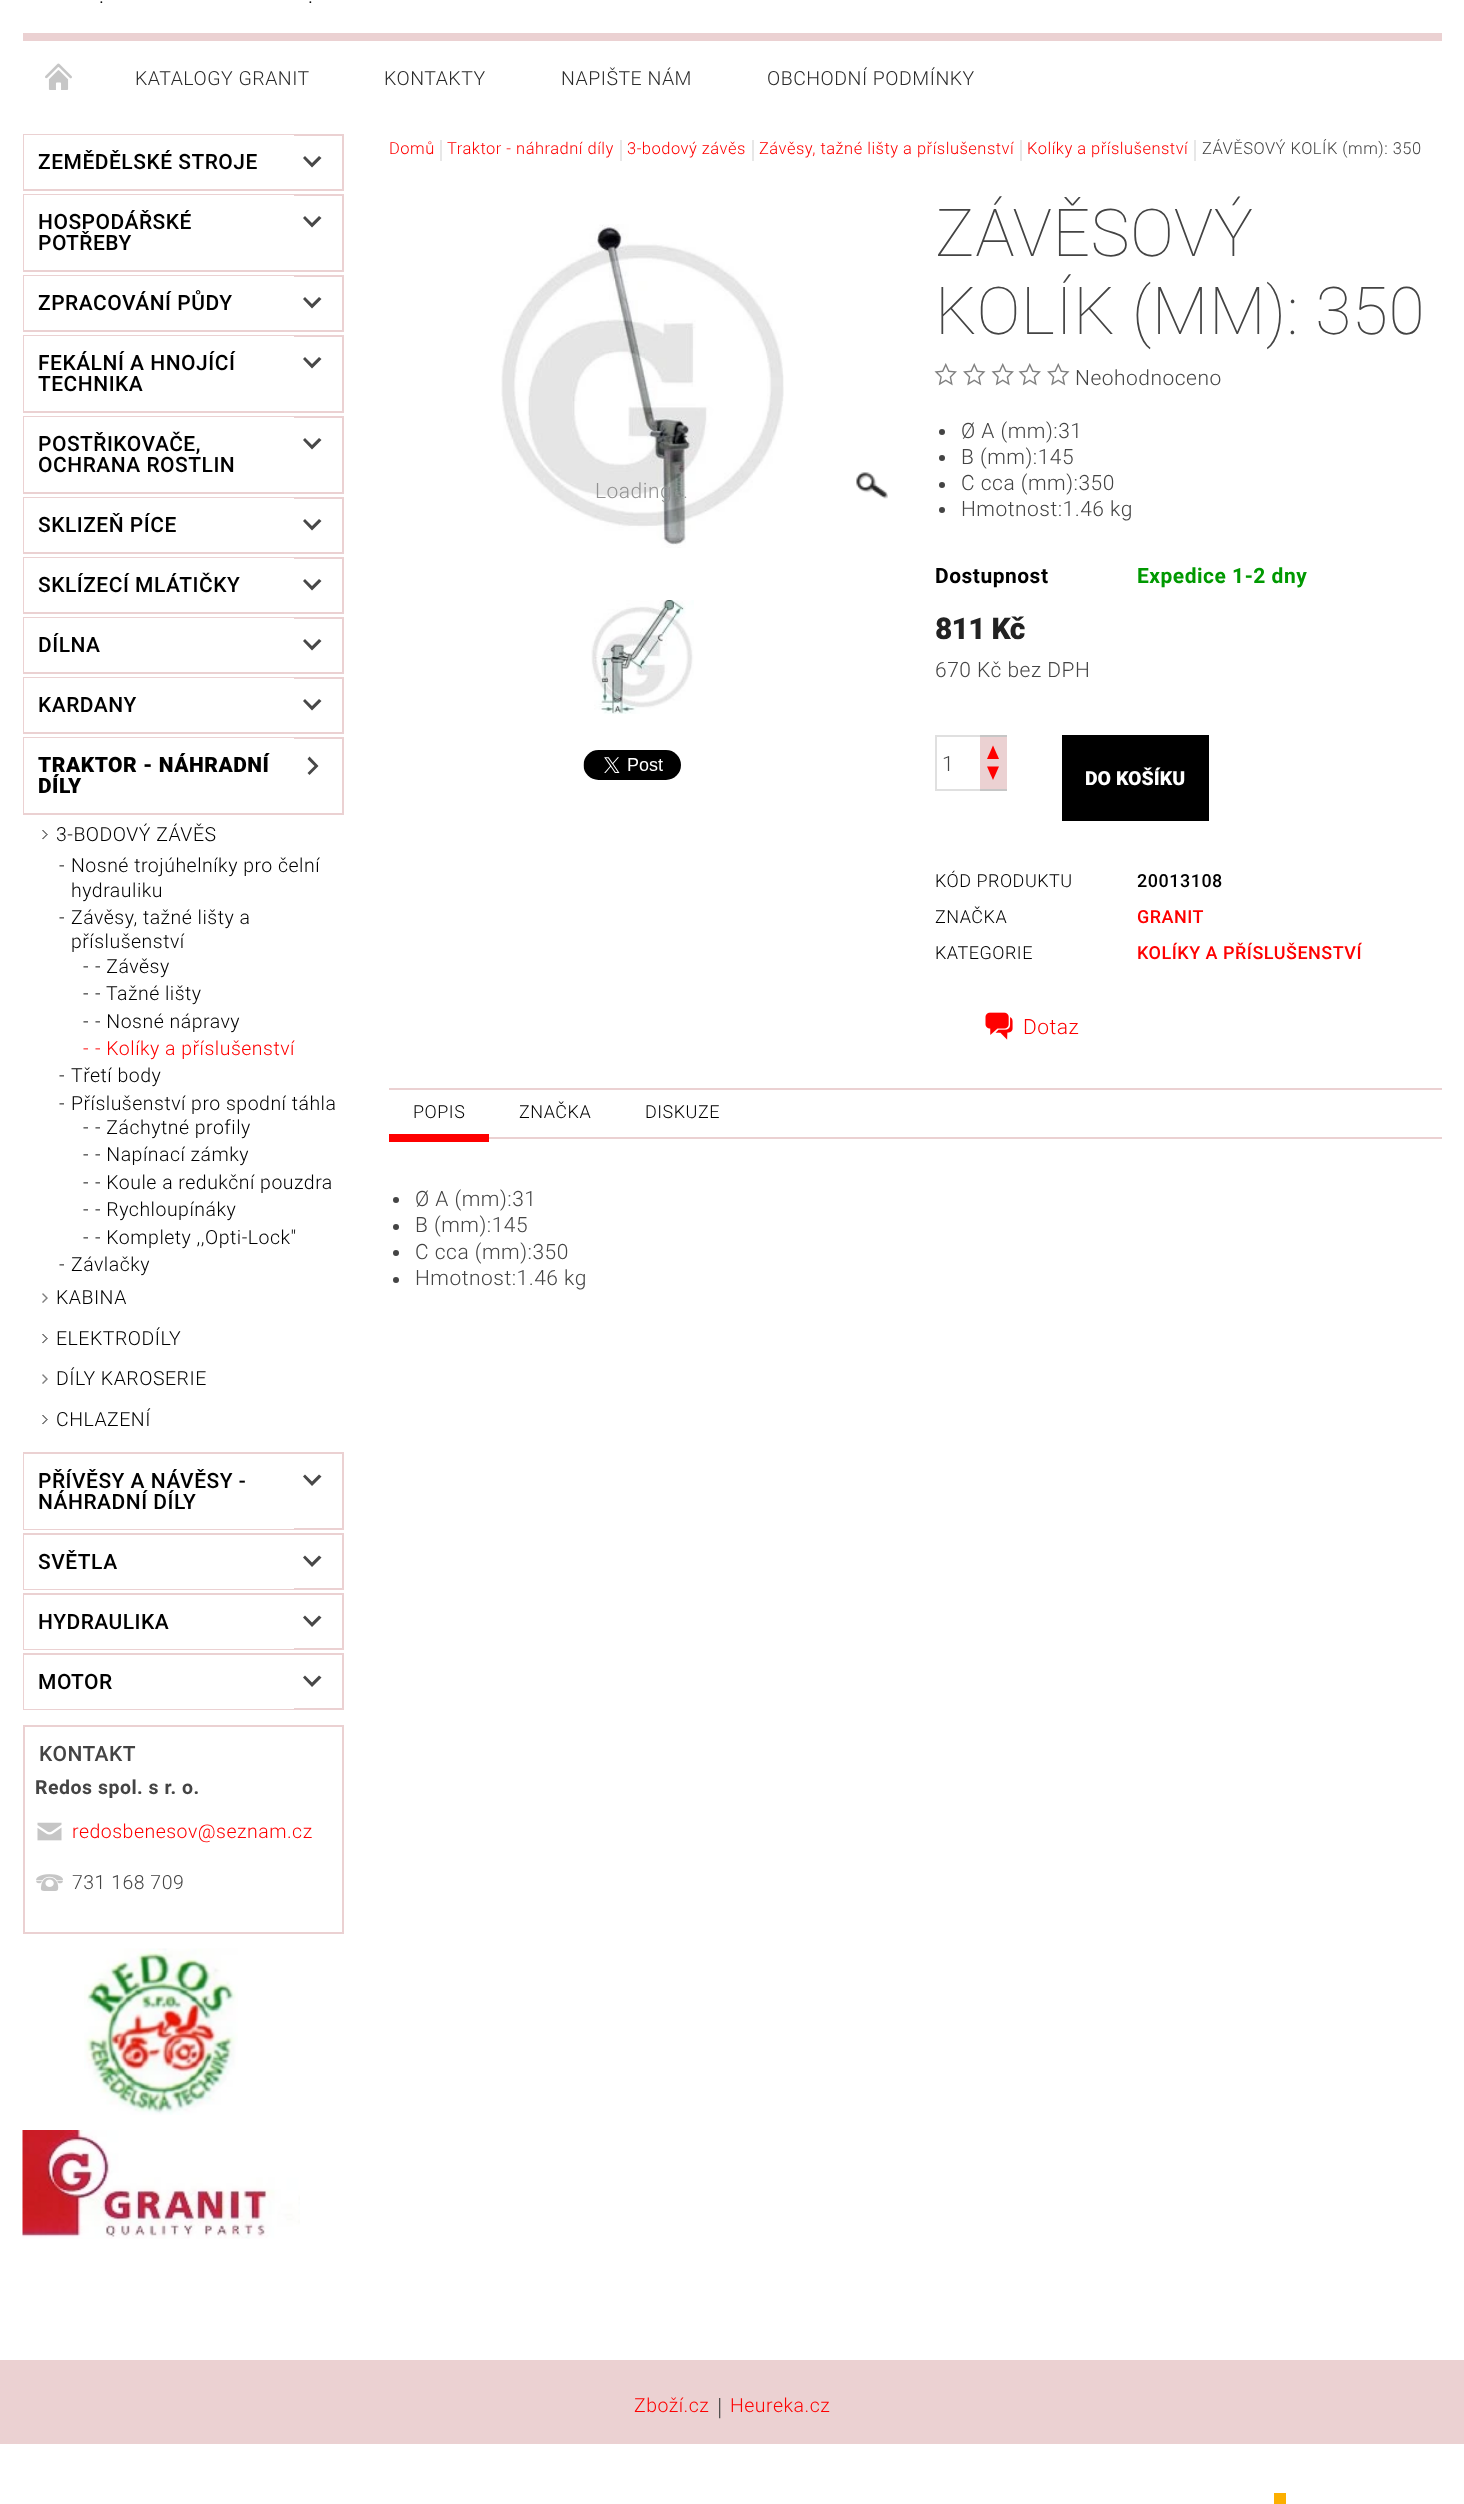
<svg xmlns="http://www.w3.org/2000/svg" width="1464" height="2504">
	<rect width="100%" height="100%" fill="#FFFFFF" />
	<g font-family="Roboto" font-size="34" font-weight="100" letter-spacing="0.5" fill="#000000">
		<text x="98" y="3">.</text>
		<text x="307" y="3">.</text>
	</g>
	<rect x="23" y="33" width="1419" height="8" fill="#EBD1D2" />
	<image x="45" y="63" width="27" height="27" href="assets/img1.png" />
	<g font-family="Roboto" font-size="19.5" font-weight="300" letter-spacing="0.5" fill="#2A2A2A">
		<text x="135" y="85">KATALOGY GRANIT</text>
		<text x="384" y="85">KONTAKTY</text>
		<text x="561" y="85">NAPIŠTE NÁM</text>
		<text x="767" y="85">OBCHODNÍ PODMÍNKY</text>
	</g>
	<rect x="24" y="135" width="319" height="55" fill="none" stroke="#EBD1D2" stroke-width="2" />
	<rect x="24" y="135" width="270" height="54" fill="#FFFFFF" />
	<text x="38" y="169" font-family="Roboto" font-size="21" font-weight="500" letter-spacing="0.5" fill="#000000">ZEMĚDĚLSKÉ STROJE</text>
	<path d="M303 158L312 167.5L321.5 158L319 156L312 163L305 156Z" fill="#484848" />
	<rect x="24" y="195" width="319" height="76" fill="none" stroke="#EBD1D2" stroke-width="2" />
	<rect x="24" y="195" width="270" height="75" fill="#FFFFFF" />
	<g font-family="Roboto" font-size="21" font-weight="500" letter-spacing="0.5" fill="#000000">
		<text x="38" y="229">HOSPODÁŘSKÉ</text>
		<text x="38" y="250">POTŘEBY</text>
	</g>
	<path d="M303 218L312 227.5L321.5 218L319 216L312 223L305 216Z" fill="#484848" />
	<rect x="24" y="276" width="319" height="55" fill="none" stroke="#EBD1D2" stroke-width="2" />
	<rect x="24" y="276" width="270" height="54" fill="#FFFFFF" />
	<text x="38" y="310" font-family="Roboto" font-size="21" font-weight="500" letter-spacing="0.5" fill="#000000">ZPRACOVÁNÍ PŮDY</text>
	<path d="M303 299L312 308.5L321.5 299L319 297L312 304L305 297Z" fill="#484848" />
	<rect x="24" y="336" width="319" height="76" fill="none" stroke="#EBD1D2" stroke-width="2" />
	<rect x="24" y="336" width="270" height="75" fill="#FFFFFF" />
	<g font-family="Roboto" font-size="21" font-weight="500" letter-spacing="0.5" fill="#000000">
		<text x="38" y="370">FEKÁLNÍ A HNOJÍCÍ</text>
		<text x="38" y="391">TECHNIKA</text>
	</g>
	<path d="M303 359L312 368.5L321.5 359L319 357L312 364L305 357Z" fill="#484848" />
	<rect x="24" y="417" width="319" height="76" fill="none" stroke="#EBD1D2" stroke-width="2" />
	<rect x="24" y="417" width="270" height="75" fill="#FFFFFF" />
	<g font-family="Roboto" font-size="21" font-weight="500" letter-spacing="0.5" fill="#000000">
		<text x="38" y="451">POSTŘIKOVAČE,</text>
		<text x="38" y="472">OCHRANA ROSTLIN</text>
	</g>
	<path d="M303 440L312 449.5L321.5 440L319 438L312 445L305 438Z" fill="#484848" />
	<rect x="24" y="498" width="319" height="55" fill="none" stroke="#EBD1D2" stroke-width="2" />
	<rect x="24" y="498" width="270" height="54" fill="#FFFFFF" />
	<text x="38" y="532" font-family="Roboto" font-size="21" font-weight="500" letter-spacing="0.5" fill="#000000">SKLIZEŇ PÍCE</text>
	<path d="M303 521L312 530.5L321.5 521L319 519L312 526L305 519Z" fill="#484848" />
	<rect x="24" y="558" width="319" height="55" fill="none" stroke="#EBD1D2" stroke-width="2" />
	<rect x="24" y="558" width="270" height="54" fill="#FFFFFF" />
	<text x="38" y="592" font-family="Roboto" font-size="21" font-weight="500" letter-spacing="0.5" fill="#000000">SKLÍZECÍ MLÁTIČKY</text>
	<path d="M303 581L312 590.5L321.5 581L319 579L312 586L305 579Z" fill="#484848" />
	<rect x="24" y="618" width="319" height="55" fill="none" stroke="#EBD1D2" stroke-width="2" />
	<rect x="24" y="618" width="270" height="54" fill="#FFFFFF" />
	<text x="38" y="652" font-family="Roboto" font-size="21" font-weight="500" letter-spacing="0.5" fill="#000000">DÍLNA</text>
	<path d="M303 641L312 650.5L321.5 641L319 639L312 646L305 639Z" fill="#484848" />
	<rect x="24" y="678" width="319" height="55" fill="none" stroke="#EBD1D2" stroke-width="2" />
	<rect x="24" y="678" width="270" height="54" fill="#FFFFFF" />
	<text x="38" y="712" font-family="Roboto" font-size="21" font-weight="500" letter-spacing="0.5" fill="#000000">KARDANY</text>
	<path d="M303 701L312 710.5L321.5 701L319 699L312 706L305 699Z" fill="#484848" />
	<rect x="24" y="738" width="319" height="76" fill="none" stroke="#EBD1D2" stroke-width="2" />
	<rect x="24" y="738" width="270" height="75" fill="#FFFFFF" />
	<g font-family="Roboto" font-size="21" font-weight="900" letter-spacing="0.5" fill="#000000">
		<text x="38" y="772">TRAKTOR - NÁHRADNÍ</text>
		<text x="38" y="793">DÍLY</text>
	</g>
	<path d="M309.5 775L318.5 766L309.5 756.5L307.5 759L314.5 766L307.5 773Z" fill="#484848" />
	<image x="42" y="830" width="6" height="10" href="assets/img2.png" />
	<g font-family="Roboto" font-size="19.5" font-weight="300" letter-spacing="0.5" fill="#000000">
		<text x="56" y="841">3-BODOVÝ ZÁVĚS</text>
		<text x="59" y="872">-</text>
		<text x="71" y="872">Nosné trojúhelníky pro čelní</text>
		<text x="71" y="897">hydrauliku</text>
		<text x="59" y="924">-</text>
		<text x="71" y="924">Závěsy, tažné lišty a</text>
		<text x="71" y="948">příslušenství</text>
		<text x="83" y="973">-</text>
		<text x="95" y="973">- Závěsy</text>
		<text x="83" y="1000">-</text>
		<text x="95" y="1000">- Tažné lišty</text>
		<text x="83" y="1028">-</text>
		<text x="95" y="1028">- Nosné nápravy</text>
	</g>
	<g font-family="Roboto" font-size="19.5" font-weight="300" letter-spacing="0.5" fill="#FE0000">
		<text x="83" y="1055">-</text>
		<text x="95" y="1055">- Kolíky a příslušenství</text>
	</g>
	<g font-family="Roboto" font-size="19.5" font-weight="300" letter-spacing="0.5" fill="#000000">
		<text x="59" y="1082">-</text>
		<text x="71" y="1082">Třetí body</text>
		<text x="59" y="1110">-</text>
		<text x="71" y="1110">Příslušenství pro spodní táhla</text>
		<text x="83" y="1134">-</text>
		<text x="95" y="1134">- Záchytné profily</text>
		<text x="83" y="1161">-</text>
		<text x="95" y="1161">- Napínací zámky</text>
		<text x="83" y="1189">-</text>
		<text x="95" y="1189">- Koule a redukční pouzdra</text>
		<text x="83" y="1216">-</text>
		<text x="95" y="1216">- Rychloupínáky</text>
		<text x="83" y="1244">-</text>
		<text x="95" y="1244">- Komplety ,,Opti-Lock"</text>
		<text x="59" y="1271">-</text>
		<text x="71" y="1271">Závlačky</text>
	</g>
	<image x="42" y="1293" width="6" height="10" href="assets/img3.png" />
	<text x="56" y="1304" font-family="Roboto" font-size="19.5" font-weight="300" letter-spacing="0.5" fill="#000000">KABINA</text>
	<image x="42" y="1334" width="6" height="10" href="assets/img2.png" />
	<text x="56" y="1345" font-family="Roboto" font-size="19.5" font-weight="300" letter-spacing="0.5" fill="#000000">ELEKTRODÍLY</text>
	<image x="42" y="1374" width="6" height="10" href="assets/img3.png" />
	<text x="56" y="1385" font-family="Roboto" font-size="19.5" font-weight="300" letter-spacing="0.5" fill="#000000">DÍLY KAROSERIE</text>
	<image x="42" y="1415" width="6" height="10" href="assets/img2.png" />
	<text x="56" y="1426" font-family="Roboto" font-size="19.5" font-weight="300" letter-spacing="0.5" fill="#000000">CHLAZENÍ</text>
	<rect x="24" y="1453" width="319" height="76" fill="none" stroke="#EBD1D2" stroke-width="2" />
	<rect x="24" y="1454" width="270" height="75" fill="#FFFFFF" />
	<g font-family="Roboto" font-size="21" font-weight="500" letter-spacing="0.5" fill="#000000">
		<text x="38" y="1488">PŘÍVĚSY A NÁVĚSY -</text>
		<text x="38" y="1509">NÁHRADNÍ DÍLY</text>
	</g>
	<path d="M303 1476.5L312 1486L321.5 1476.5L319 1474.5L312 1481.5L305 1474.5Z" fill="#484848" />
	<rect x="24" y="1534" width="319" height="55" fill="none" stroke="#EBD1D2" stroke-width="2" />
	<rect x="24" y="1535" width="270" height="54" fill="#FFFFFF" />
	<text x="38" y="1569" font-family="Roboto" font-size="21" font-weight="500" letter-spacing="0.5" fill="#000000">SVĚTLA</text>
	<path d="M303 1557.5L312 1567L321.5 1557.5L319 1555.5L312 1562.5L305 1555.5Z" fill="#484848" />
	<rect x="24" y="1594" width="319" height="55" fill="none" stroke="#EBD1D2" stroke-width="2" />
	<rect x="24" y="1595" width="270" height="54" fill="#FFFFFF" />
	<text x="38" y="1629" font-family="Roboto" font-size="21" font-weight="500" letter-spacing="0.5" fill="#000000">HYDRAULIKA</text>
	<path d="M303 1617.5L312 1627L321.5 1617.5L319 1615.5L312 1622.5L305 1615.5Z" fill="#484848" />
	<rect x="24" y="1654" width="319" height="55" fill="none" stroke="#EBD1D2" stroke-width="2" />
	<rect x="24" y="1655" width="270" height="54" fill="#FFFFFF" />
	<text x="38" y="1689" font-family="Roboto" font-size="21" font-weight="500" letter-spacing="0.5" fill="#000000">MOTOR</text>
	<path d="M303 1677.5L312 1687L321.5 1677.5L319 1675.5L312 1682.5L305 1675.5Z" fill="#484848" />
	<rect x="24" y="1726" width="319" height="207" fill="none" stroke="#EBD1D2" stroke-width="2" />
	<text x="39" y="1761" font-family="Roboto" font-size="21" font-weight="500" letter-spacing="0.5" fill="#444444">KONTAKT</text>
	<text x="35" y="1794" font-family="Roboto" font-size="19.5" font-weight="700" letter-spacing="0.5" fill="#444444">Redos spol. s r. o.</text>
	<image x="37" y="1822" width="25" height="19" href="assets/img4.png" />
	<text x="72" y="1838" font-family="Roboto" font-size="19.5" font-weight="300" letter-spacing="0.5" fill="#FE0000">redosbenesov@seznam.cz</text>
	<image x="36" y="1874" width="27" height="17" href="assets/img5.png" />
	<text x="72" y="1889" font-family="Roboto" font-size="19.5" font-weight="300" letter-spacing="0.5" fill="#444444">731 168 709</text>
	<image x="84" y="1948" width="154" height="167" href="assets/img6.png" />
	<image x="22" y="2130" width="278" height="109" href="assets/img7.png" />
	<text x="389" y="154" font-family="Roboto" font-size="16.5" font-weight="300" letter-spacing="0.5" fill="#FE0000">Domů</text>
	<rect x="440" y="140" width="2" height="21" fill="#E7E7E7" />
	<text x="447" y="154" font-family="Roboto" font-size="16.5" font-weight="300" letter-spacing="0.5" fill="#FE0000">Traktor - náhradní díly</text>
	<rect x="620" y="140" width="2" height="21" fill="#E7E7E7" />
	<text x="627" y="154" font-family="Roboto" font-size="16.5" font-weight="300" letter-spacing="0.5" fill="#FE0000">3-bodový závěs</text>
	<rect x="752" y="140" width="2" height="21" fill="#E7E7E7" />
	<text x="759" y="154" font-family="Roboto" font-size="16.5" font-weight="300" letter-spacing="0.5" fill="#FE0000">Závěsy, tažné lišty a příslušenství</text>
	<rect x="1020" y="140" width="2" height="21" fill="#E7E7E7" />
	<text x="1027" y="154" font-family="Roboto" font-size="16.5" font-weight="300" letter-spacing="0.5" fill="#FE0000">Kolíky a příslušenství</text>
	<rect x="1194" y="140" width="2" height="21" fill="#E7E7E7" />
	<text x="1202" y="154" font-family="Roboto" font-size="16.5" font-weight="300" letter-spacing="0.5" fill="#444444">ZÁVĚSOVÝ KOLÍK (mm): 350</text>
	<image x="501" y="224" width="283" height="324" href="assets/img8.png" />
	<g font-family="Roboto" font-size="21" font-weight="300" letter-spacing="0.5" fill="#929292">
		<text x="595" y="498">Loading</text>
		<text x="683" y="498">.</text>
	</g>
	<image x="856" y="472" width="32" height="27" href="assets/img9.png" />
	<image x="591" y="600" width="103" height="114" href="assets/img10.png" />
	<image x="583" y="750" width="98" height="30" href="assets/img11.png" />
	<g font-family="Roboto" font-size="66" font-weight="100" letter-spacing="0.5" fill="#444444">
		<text x="935" y="256">ZÁVĚSOVÝ</text>
		<text x="935" y="334">KOLÍK (MM): 350</text>
	</g>
	<image x="934" y="363" width="23" height="23" href="assets/img12.png" />
	<image x="963" y="363" width="23" height="23" href="assets/img13.png" />
	<image x="991" y="363" width="23" height="23" href="assets/img12.png" />
	<image x="1018" y="363" width="23" height="23" href="assets/img12.png" />
	<image x="1047" y="363" width="23" height="23" href="assets/img13.png" />
	<text x="1075" y="385" font-family="Roboto" font-size="21" font-weight="300" letter-spacing="0.5" fill="#444444">Neohodnoceno</text>
	<circle cx="942" cy="432" r="3" fill="#444444" />
	<text x="961" y="438" font-family="Roboto" font-size="21" font-weight="300" letter-spacing="0.5" fill="#444444">Ø A (mm):31</text>
	<circle cx="942" cy="458" r="3" fill="#444444" />
	<text x="961" y="464" font-family="Roboto" font-size="21" font-weight="300" letter-spacing="0.5" fill="#444444">B (mm):145</text>
	<circle cx="942" cy="485" r="3" fill="#444444" />
	<text x="961" y="490" font-family="Roboto" font-size="21" font-weight="300" letter-spacing="0.5" fill="#444444">C cca (mm):350</text>
	<circle cx="942" cy="510" r="3" fill="#444444" />
	<text x="961" y="516" font-family="Roboto" font-size="21" font-weight="300" letter-spacing="0.5" fill="#444444">Hmotnost:1.46 kg</text>
	<text x="935" y="583" font-family="Roboto" font-size="21" font-weight="700" letter-spacing="0.5" fill="#000000">Dostupnost</text>
	<text x="1137" y="583" font-family="Roboto" font-size="21" font-weight="700" letter-spacing="0.5" fill="#009901">Expedice 1-2 dny</text>
	<text x="935" y="639" font-family="Roboto" font-size="30" font-weight="900" letter-spacing="-0.75" fill="#222222">811 Kč</text>
	<text x="935" y="677" font-family="Roboto" font-size="21" font-weight="300" letter-spacing="0.5" fill="#444444">670 Kč bez DPH</text>
	<rect x="936" y="736" width="70" height="54" fill="none" stroke="#E0E0E0" stroke-width="2" />
	<text x="942" y="771" font-family="Roboto" font-size="21" font-weight="300" fill="#444444">1</text>
	<rect x="980" y="737" width="27" height="52" fill="#EBD1D2" />
	<rect x="980" y="735" width="27" height="2" fill="#C6C6C6" />
	<path d="M999 759H987L993 745.5Z" fill="#FE0000" />
	<rect x="980" y="789" width="27" height="2" fill="#C6C6C6" />
	<path d="M987 766.5H999L993 780Z" fill="#FE0000" />
	<rect x="1062" y="735" width="147" height="86" fill="#000000" />
	<text x="1085" y="785" font-family="Roboto" font-size="19.5" font-weight="900" fill="#FFFFFF">DO KOŠÍKU</text>
	<text x="935" y="887" font-family="Roboto" font-size="18" font-weight="300" letter-spacing="0.5" fill="#000000">KÓD PRODUKTU</text>
	<text x="1137" y="887" font-family="Roboto" font-size="18" font-weight="500" letter-spacing="0.5" fill="#000000">20013108</text>
	<text x="935" y="923" font-family="Roboto" font-size="18" font-weight="300" letter-spacing="0.5" fill="#000000">ZNAČKA</text>
	<text x="1137" y="923" font-family="Roboto" font-size="18" font-weight="500" letter-spacing="0.5" fill="#FE0000">GRANIT</text>
	<text x="935" y="959" font-family="Roboto" font-size="18" font-weight="300" letter-spacing="0.5" fill="#000000">KATEGORIE</text>
	<text x="1137" y="959" font-family="Roboto" font-size="18" font-weight="500" letter-spacing="0.5" fill="#FE0000">KOLÍKY A PŘÍSLUŠENSTVÍ</text>
	<image x="985" y="1012" width="28" height="28" href="assets/img14.png" />
	<text x="1023" y="1034" font-family="Roboto" font-size="21" font-weight="300" letter-spacing="0.5" fill="#FE0000">Dotaz</text>
	<rect x="389" y="1088" width="1053" height="2" fill="#EBD1D2" />
	<rect x="489" y="1137" width="953" height="2" fill="#EBD1D2" />
	<rect x="389" y="1134" width="100" height="8" fill="#FE0000" />
	<g font-family="Roboto" font-size="18" font-weight="300" letter-spacing="0.5" fill="#000000">
		<text x="413" y="1118">POPIS</text>
		<text x="519" y="1118">ZNAČKA</text>
		<text x="645" y="1118">DISKUZE</text>
	</g>
	<circle cx="396" cy="1200" r="3" fill="#444444" />
	<text x="415" y="1206" font-family="Roboto" font-size="21" font-weight="300" letter-spacing="0.5" fill="#444444">Ø A (mm):31</text>
	<circle cx="396" cy="1227" r="3" fill="#444444" />
	<text x="415" y="1232" font-family="Roboto" font-size="21" font-weight="300" letter-spacing="0.5" fill="#444444">B (mm):145</text>
	<circle cx="396" cy="1253" r="3" fill="#444444" />
	<text x="415" y="1259" font-family="Roboto" font-size="21" font-weight="300" letter-spacing="0.5" fill="#444444">C cca (mm):350</text>
	<circle cx="396" cy="1280" r="3" fill="#444444" />
	<text x="415" y="1285" font-family="Roboto" font-size="21" font-weight="300" letter-spacing="0.5" fill="#444444">Hmotnost:1.46 kg</text>
	<rect x="0" y="2360" width="1464" height="84" fill="#EBD1D2" />
	<text x="634" y="2412" font-family="Roboto" font-size="19.5" font-weight="300" letter-spacing="0.5" fill="#FE0000">Zboží.cz</text>
	<text x="717" y="2415" font-family="Roboto" font-size="24" font-weight="300" letter-spacing="0.5" fill="#444444">|</text>
	<text x="730" y="2412" font-family="Roboto" font-size="19.5" font-weight="300" letter-spacing="0.5" fill="#FE0000">Heureka.cz</text>
	<rect x="1274" y="2493" width="12" height="11" fill="#FCAF00" />
</svg>
